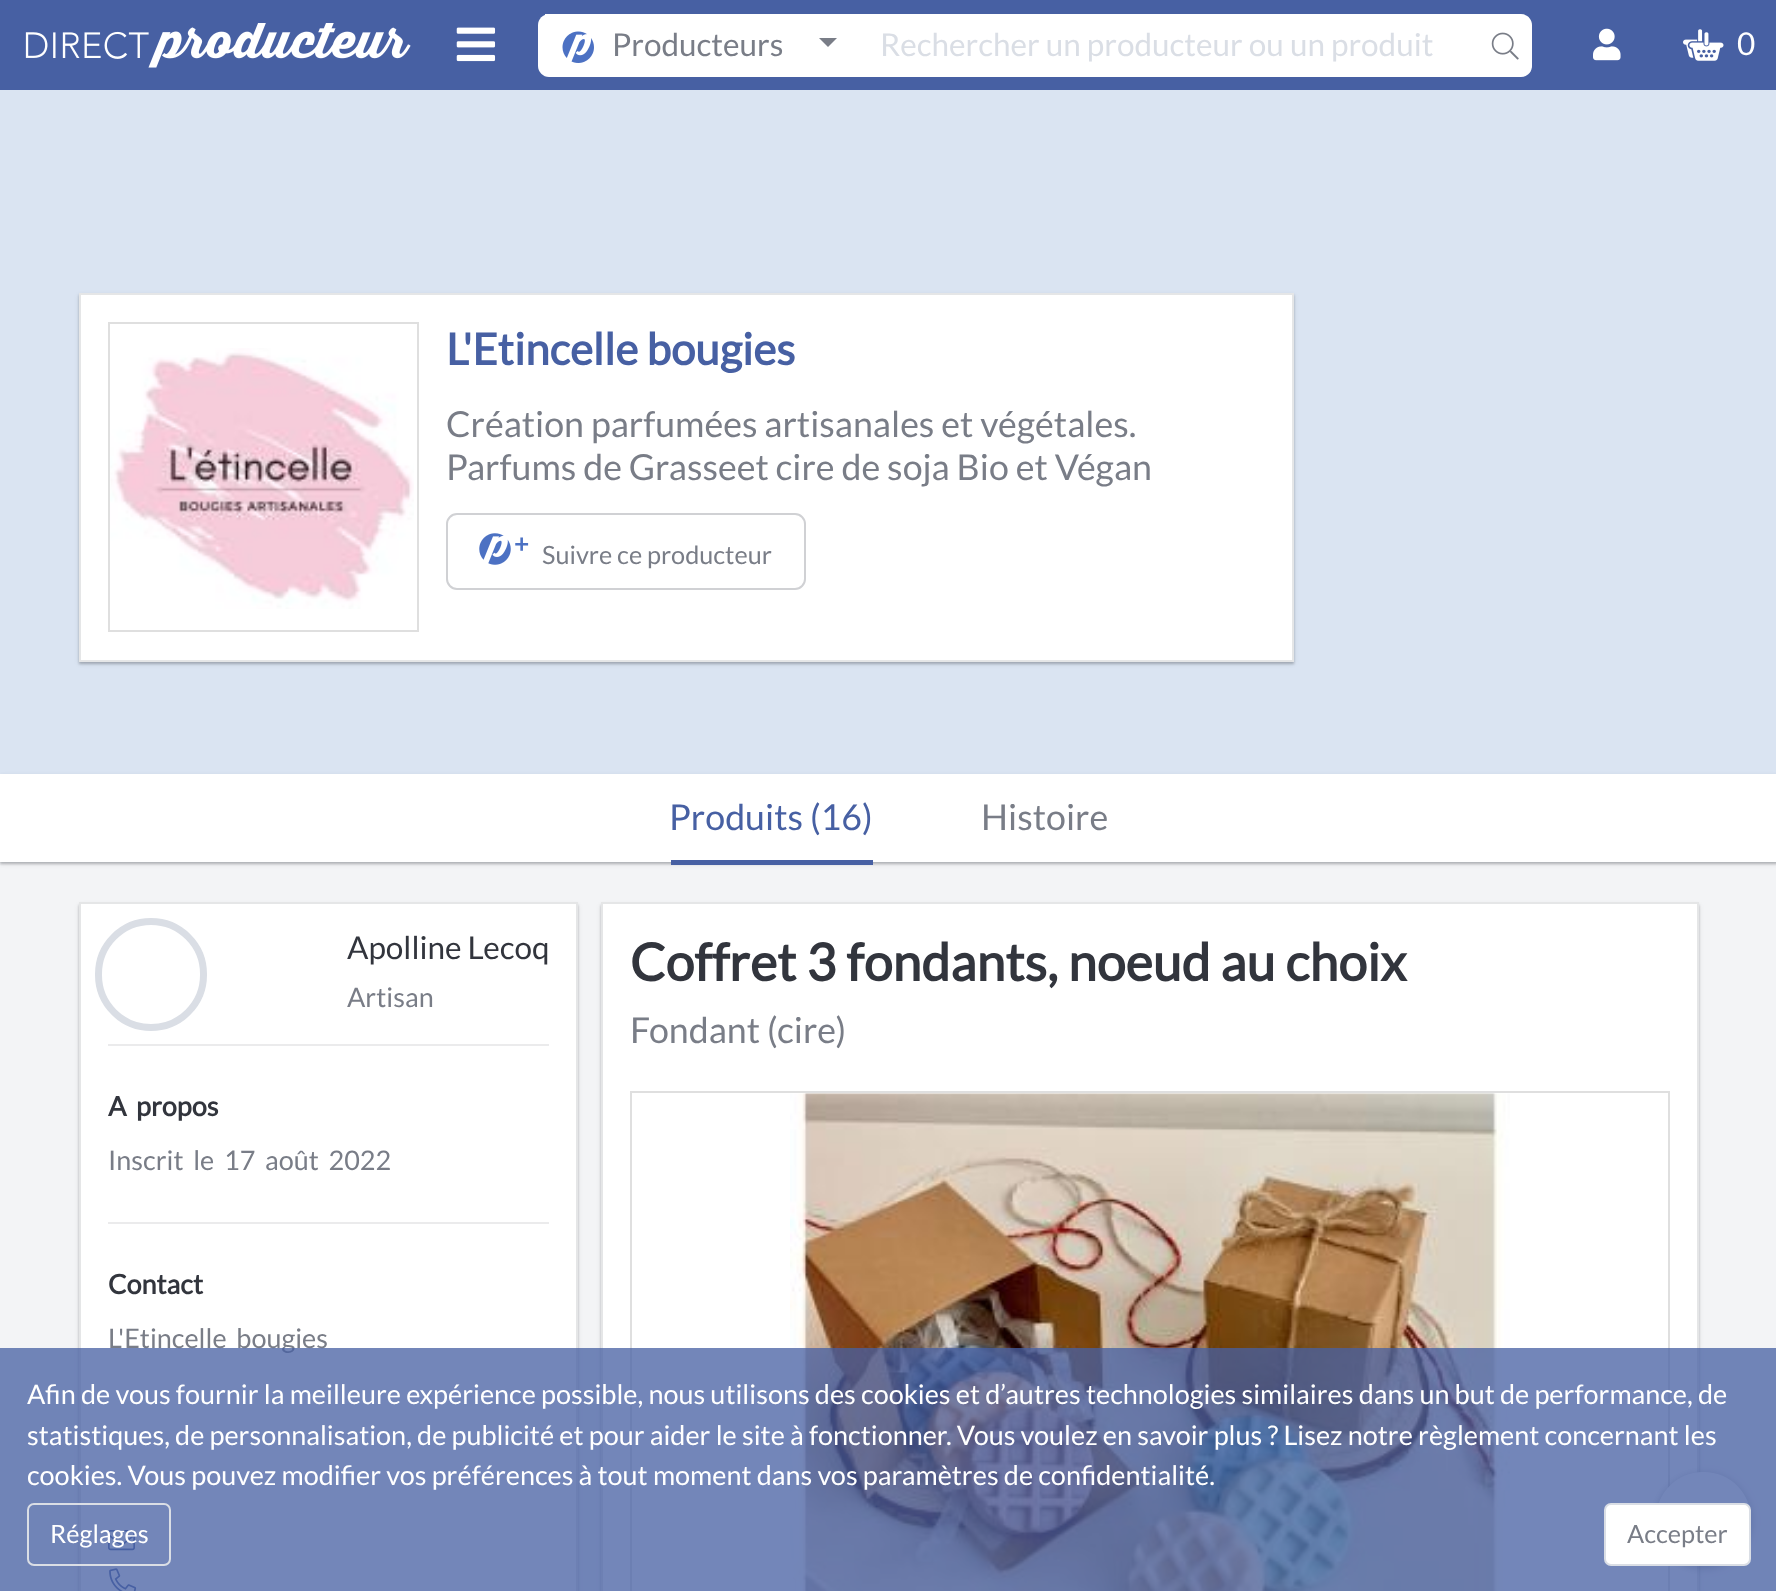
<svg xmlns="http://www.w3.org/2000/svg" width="1776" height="1591">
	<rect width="100%" height="100%" fill="#F3F4F6" />
	<rect x="0" y="0" width="1776" height="90" fill="#4760A3" />
	<image x="25" y="23" width="386" height="45" href="assets/img1.png" />
	<image x="456" y="27" width="40" height="35" href="assets/img2.png" />
	<path d="M549 14H860V77H549C543 77 538 72 538 66V25C538 19 543 14 549 14Z" fill="#FFFFFF" />
	<rect x="545" y="14" width="4" height="1" fill="#FFFFFF" />
	<image x="562" y="31" width="32" height="32" href="assets/img3.png" />
	<text x="612" y="56" font-family="Lato" font-size="31.5" fill="#797D87">Producteurs</text>
	<path d="M819 38H837L828 47Z" fill="#797D87" />
	<rect x="860" y="14" width="618" height="63" fill="#FFFFFF" />
	<text x="880" y="56" font-family="Lato" font-size="31.5" fill="#DADEE5">Rechercher un producteur ou un produit</text>
	<path d="M1478 14H1521C1527 14 1532 19 1532 25V66C1532 72 1527 77 1521 77H1478Z" fill="#FFFFFF" />
	<image x="1491" y="32" width="28" height="28" href="assets/img4.png" />
	<image x="1593" y="28" width="28" height="33" href="assets/img5.png" />
	<image x="1683" y="29" width="41" height="32" href="assets/img6.png" />
	<text x="1737" y="55" font-family="Lato" font-size="31.5" fill="#FFFFFF">0</text>
	<rect x="0" y="90" width="1776" height="684" fill="#DAE4F2" />
	<rect x="79" y="295" width="1215" height="369" fill="#32353D" fill-opacity="0.24" filter="blur(1px)" />
	<rect x="79" y="295" width="1215" height="369" fill="#32353D" fill-opacity="0.16" filter="blur(2px)" />
	<rect x="80" y="294" width="1213" height="367" fill="#FFFFFF" stroke="#E5E6E7" stroke-width="2" />
	<rect x="109" y="323" width="309" height="308" fill="none" stroke="#DFDFDF" stroke-width="2" />
	<image x="110" y="348" width="304" height="261" href="assets/img7.png" />
	<text x="446" y="365" font-family="Lato" font-size="43.75" font-weight="700" fill="#4760A3">L'Etincelle bougies</text>
	<g font-family="Lato" font-size="35.75" fill="#797D87">
		<text x="446" y="437">Création parfumées artisanales et végétales.</text>
		<text x="446" y="480">Parfums de Grasseet cire de soja Bio et Végan</text>
	</g>
	<rect x="447" y="514" width="358" height="75" rx="10" fill="none" stroke="#D0D1D4" stroke-width="2" />
	<image x="479" y="533" width="32" height="32" href="assets/img8.png" />
	<text x="514" y="553" font-family="Lato" font-size="25.25" font-weight="700" fill="#4C71C3">+</text>
	<text x="542" y="564" font-family="Lato" font-size="25.25" fill="#797D87">Suivre ce producteur</text>
	<rect x="0" y="776" width="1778" height="88" fill="#32353D" fill-opacity="0.24" filter="blur(1px)" />
	<rect x="0" y="776" width="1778" height="88" fill="#32353D" fill-opacity="0.16" filter="blur(2px)" />
	<rect x="0" y="774" width="1776" height="88" fill="#FFFFFF" />
	<rect x="671" y="860" width="202" height="5" fill="#4760A3" />
	<text x="669" y="830" font-family="Lato" font-size="35.75" fill="#4760A3">Produits (16)</text>
	<text x="981" y="830" font-family="Lato" font-size="35.75" fill="#797D87">Histoire</text>
	<rect x="79" y="905" width="499" height="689" fill="#32353D" fill-opacity="0.24" filter="blur(1px)" />
	<rect x="79" y="905" width="499" height="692" fill="#32353D" fill-opacity="0.16" filter="blur(2px)" />
	<rect x="80" y="903" width="497" height="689" fill="#FFFFFF" stroke="#E5E6E7" stroke-width="2" />
	<rect x="98.5" y="921.5" width="105" height="106" rx="52.5" fill="none" stroke="#DADEE5" stroke-width="7" />
	<text x="347" y="959" font-family="Lato" font-size="31.5" fill="#32353D">Apolline Lecoq</text>
	<text x="347" y="1007" font-family="Lato" font-size="27" fill="#797D87">Artisan</text>
	<rect x="108" y="1044" width="441" height="2" fill="#EBEBEC" />
	<text x="108" y="1116" word-spacing="4.5" font-family="Lato" font-size="27" font-weight="700" fill="#32353D">A propos</text>
	<text x="108" y="1170" word-spacing="4.5" font-family="Lato" font-size="27" fill="#797D87">Inscrit le 17 août 2022</text>
	<rect x="108" y="1222" width="441" height="2" fill="#EBEBEC" />
	<text x="108" y="1294" font-family="Lato" font-size="27" font-weight="700" fill="#32353D">Contact</text>
	<text x="108" y="1348" word-spacing="4.5" font-family="Lato" font-size="27" fill="#797D87">L'Etincelle bougies</text>
	<image x="108" y="1530" width="27" height="21" href="assets/img9.png" />
	<image x="109" y="1568" width="28" height="23" href="assets/img10.png" />
	<rect x="601" y="905" width="1098" height="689" fill="#32353D" fill-opacity="0.24" filter="blur(1px)" />
	<rect x="601" y="905" width="1098" height="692" fill="#32353D" fill-opacity="0.16" filter="blur(2px)" />
	<rect x="602" y="903" width="1096" height="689" fill="#FFFFFF" stroke="#E5E6E7" stroke-width="2" />
	<text x="630" y="981" font-family="Lato" font-size="51.75" font-weight="700" fill="#32353D">Coffret 3 fondants, noeud au choix</text>
	<text x="630" y="1043" font-family="Lato" font-size="35.75" fill="#797D87">Fondant (cire)</text>
	<rect x="631" y="1092" width="1038" height="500" fill="none" stroke="#DFDFDF" stroke-width="2" />
	<image x="790" y="1093" width="720" height="498" href="assets/img11.png" />
	<rect x="1656" y="1474" width="95" height="94" rx="47" fill="#32353E" fill-opacity="0.36" filter="blur(4.5px)" />
	<rect x="1656" y="1472" width="95" height="94" rx="47" fill="#FFFFFF" />
	<rect x="0" y="1348" width="1776" height="243" fill="#4760A3" fill-opacity="0.76" />
	<g font-family="Lato" font-size="27" fill="#FFFFFF">
		<text x="27" y="1404">Afin de vous fournir la meilleure expérience possible, nous utilisons des cookies et d’autres technologies similaires dans un but de performance, de</text>
		<text x="27" y="1445">statistiques, de personnalisation, de publicité et pour aider le site à fonctionner. Vous voulez en savoir plus ? Lisez notre règlement concernant les</text>
		<text x="27" y="1485">cookies. Vous pouvez modifier vos préférences à tout moment dans vos paramètres de confidentialité.</text>
	</g>
	<rect x="28" y="1504" width="142" height="61" rx="6" fill="none" stroke="#DADEE5" stroke-width="2" />
	<text x="50" y="1543" font-family="Lato" font-size="25.25" fill="#FFFFFF">Réglages</text>
	<rect x="1605" y="1504" width="145" height="61" rx="6" fill="#FFFFFF" stroke="#DADEE5" stroke-width="2" />
	<text x="1627" y="1543" font-family="Lato" font-size="25.25" fill="#797D87">Accepter</text>
</svg>
